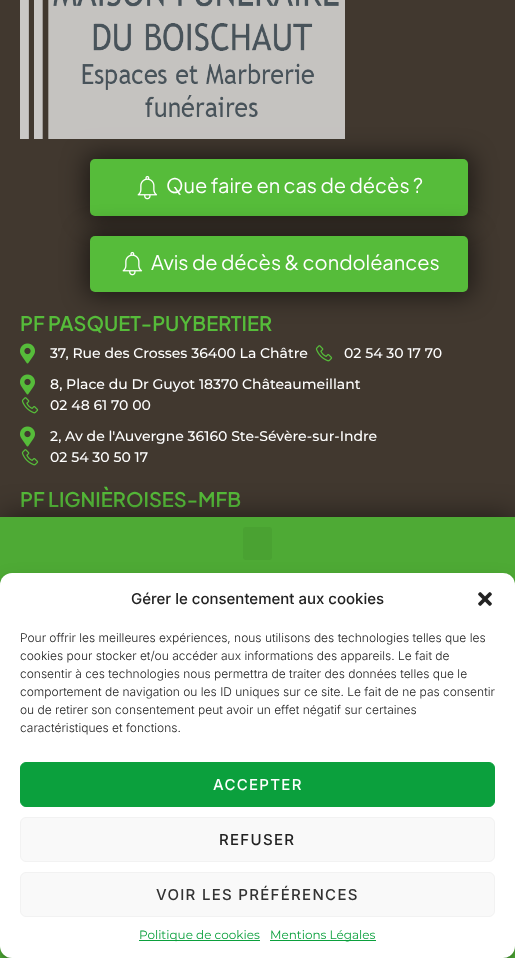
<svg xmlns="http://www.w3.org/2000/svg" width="515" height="958">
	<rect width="100%" height="100%" fill="#41382F" />
	<rect x="85" y="154" width="388" height="67" rx="10" fill="#000000" fill-opacity="0.5" filter="blur(11.5px)" />
	<image x="20" y="0" width="325" height="139" href="assets/img1.png" />
	<rect x="90" y="159" width="378" height="57" rx="5" fill="#56BC3A" />
	<image x="137" y="175" width="21" height="25" href="assets/img2.png" />
	<text x="166" y="193" font-family="Plus Jakarta Sans" font-size="20" fill="#FFFFFF">Que faire en cas de décès ?</text>
	<rect x="85" y="231" width="388" height="66" rx="10" fill="#000000" fill-opacity="0.5" filter="blur(11.5px)" />
	<rect x="90" y="236" width="378" height="56" rx="5" fill="#56BC3A" />
	<image x="122" y="251" width="21" height="25" href="assets/img2.png" />
	<text x="151" y="270" font-family="Plus Jakarta Sans" font-size="20" fill="#FFFFFF">Avis de décès &amp; condoléances</text>
	<text x="20" y="331" font-family="Plus Jakarta Sans" font-size="20" font-weight="600" fill="#56BC3A">PF PASQUET-PUYBERTIER</text>
	<image x="20" y="343" width="15" height="21" href="assets/img3.png" />
	<text x="50" y="358" font-family="Montserrat" font-size="14" font-weight="500" fill="#FFFFFF">37, Rue des Crosses 36400 La Châtre</text>
	<image x="315" y="345" width="18" height="17" href="assets/img4.png" />
	<text x="344" y="358" font-family="Montserrat" font-size="14" font-weight="500" fill="#FFFFFF">02 54 30 17 70</text>
	<image x="20" y="374" width="15" height="21" href="assets/img3.png" />
	<text x="50" y="389" font-family="Montserrat" font-size="14" font-weight="500" fill="#FFFFFF">8, Place du Dr Guyot 18370 Châteaumeillant</text>
	<image x="21" y="397" width="18" height="17" href="assets/img4.png" />
	<text x="50" y="410" font-family="Montserrat" font-size="14" font-weight="500" fill="#FFFFFF">02 48 61 70 00</text>
	<image x="20" y="426" width="15" height="21" href="assets/img3.png" />
	<text x="50" y="441" font-family="Montserrat" font-size="14" font-weight="500" fill="#FFFFFF">2, Av de l'Auvergne 36160 Ste-Sévère-sur-Indre</text>
	<image x="21" y="449" width="18" height="17" href="assets/img4.png" />
	<text x="50" y="462" font-family="Montserrat" font-size="14" font-weight="500" fill="#FFFFFF">02 54 30 50 17</text>
	<text x="20" y="507" font-family="Plus Jakarta Sans" font-size="20" font-weight="600" fill="#56BC3A">PF LIGNIÈROISES-MFB</text>
	<rect x="3" y="516" width="511" height="130" fill="#000000" fill-opacity="0.5" filter="blur(14.5px)" />
	<rect x="0" y="517" width="515" height="68" fill="#4EAA35" />
	<rect x="243" y="527" width="29" height="33" rx="3" fill="#4AA232" />
	<rect x="0" y="946" width="515" height="12" fill="#56BC3A" />
	<rect x="0" y="579" width="515" height="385" rx="12" fill="#000000" fill-opacity="0.23" filter="blur(3px)" />
	<rect x="0" y="583" width="515" height="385" rx="12" fill="#000000" fill-opacity="0.19" filter="blur(10px)" />
	<rect x="0" y="573" width="515" height="385" rx="12" fill="#FFFFFF" />
	<text x="131" y="604" font-family="Inter" font-size="15" font-weight="500" fill="#222222">Gérer le consentement aux cookies</text>
	<image x="478" y="592" width="14" height="14" href="assets/img5.png" />
	<g font-family="Inter" font-size="12" font-weight="300" fill="#222222">
		<text x="20" y="642">Pour offrir les meilleures expériences, nous utilisons des technologies telles que les</text>
		<text x="20" y="660">cookies pour stocker et/ou accéder aux informations des appareils. Le fait de</text>
		<text x="20" y="678">consentir à ces technologies nous permettra de traiter des données telles que le</text>
		<text x="20" y="696">comportement de navigation ou les ID uniques sur ce site. Le fait de ne pas consentir</text>
		<text x="20" y="714">ou de retirer son consentement peut avoir un effet négatif sur certaines</text>
		<text x="20" y="732">caractéristiques et fonctions.</text>
	</g>
	<rect x="20.5" y="762.5" width="474" height="44" rx="5.5" fill="#0BA03D" stroke="#0BA03D" />
	<text x="213" y="790" font-family="Inter" font-size="15" font-weight="500" letter-spacing="1.3" fill="#FFFFFF">ACCEPTER</text>
	<rect x="20.5" y="817.5" width="474" height="44" rx="5.5" fill="#F9F9F9" stroke="#F2F2F2" />
	<text x="219" y="845" font-family="Inter" font-size="15" font-weight="500" letter-spacing="1.3" fill="#222222">REFUSER</text>
	<rect x="20.5" y="872.5" width="474" height="44" rx="5.5" fill="#F9F9F9" stroke="#F2F2F2" />
	<text x="156" y="900" font-family="Inter" font-size="15" font-weight="500" letter-spacing="1.3" fill="#333333">VOIR LES PRÉFÉRENCES</text>
	<rect x="139" y="940" width="121" height="1" fill="#0BA03D" />
	<text x="139" y="939" font-family="Montserrat" font-size="12" fill="#0BA03D">Politique de cookies</text>
	<rect x="270" y="940" width="106" height="1" fill="#0BA03D" />
	<text x="270" y="939" font-family="Montserrat" font-size="12" fill="#0BA03D">Mentions Légales</text>
</svg>
